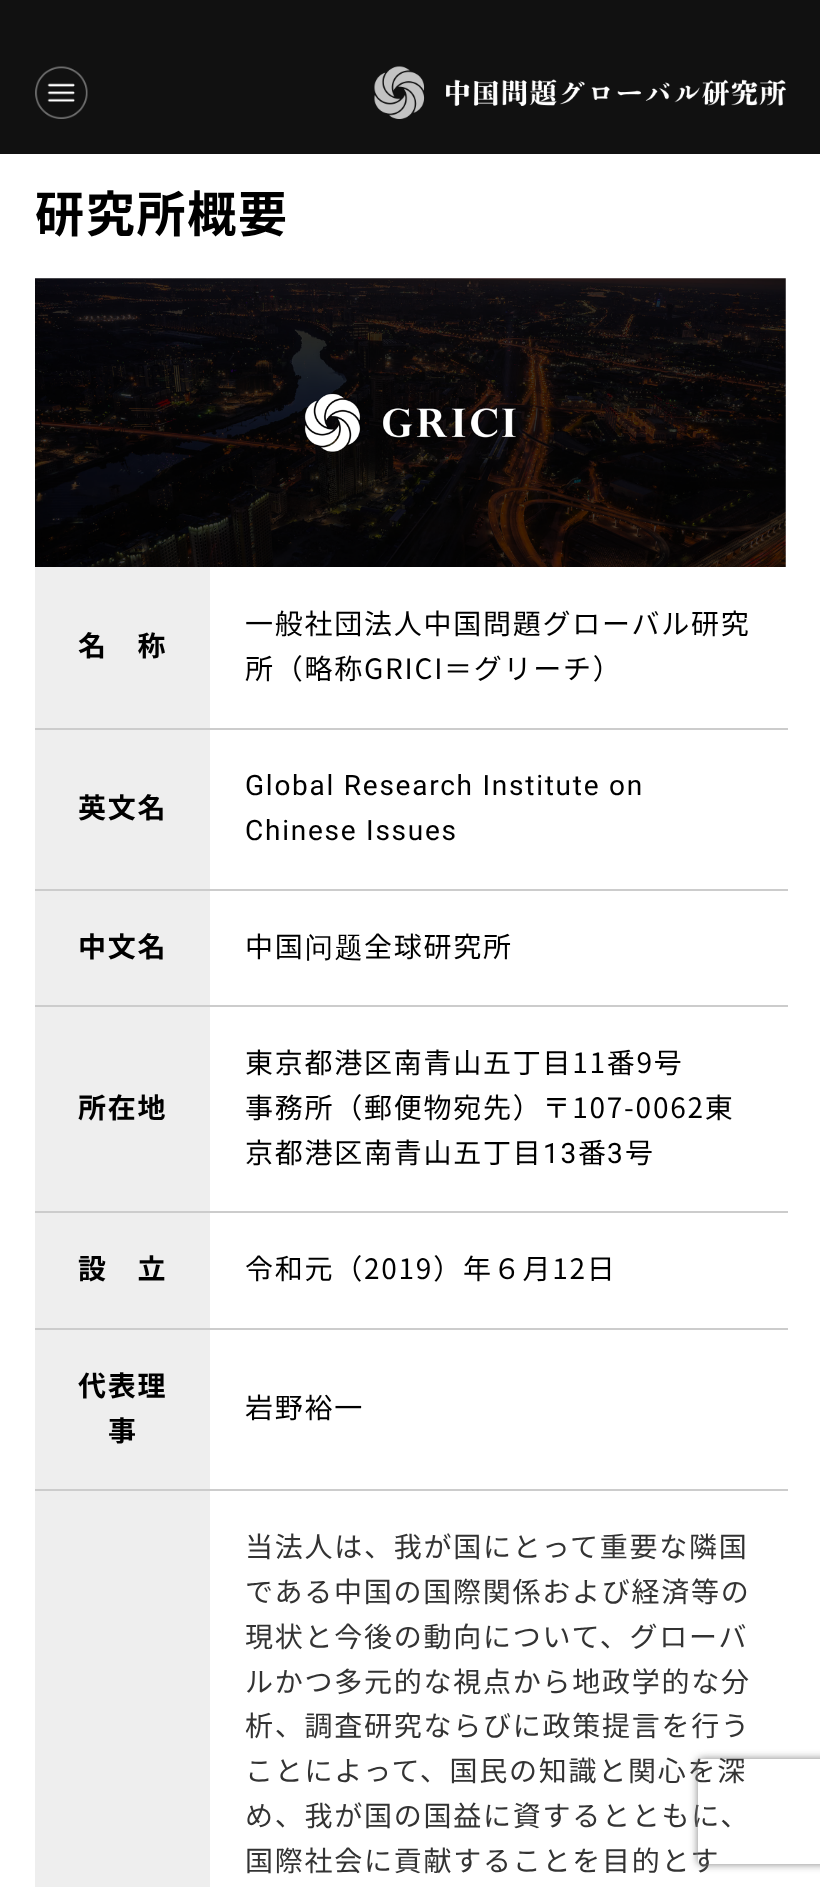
<svg xmlns="http://www.w3.org/2000/svg" width="820" height="1887">
	<defs>
		<clipPath id="clip1"><path d="M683 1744H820V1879H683ZM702 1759H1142C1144 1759 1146 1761 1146 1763V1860C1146 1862 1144 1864 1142 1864H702C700 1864 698 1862 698 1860V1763C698 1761 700 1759 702 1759Z" clip-rule="evenodd" /></clipPath>
	</defs>
	<rect width="100%" height="100%" fill="#111111" />
	<image x="35" y="66" width="53" height="53" href="assets/img1.png" />
	<image x="374" y="66" width="412" height="53" href="assets/img2.png" />
	<rect x="0" y="154" width="820" height="1733" fill="#FFFFFF" />
	<text x="35" y="232" font-family="Noto Sans JP" font-size="49" font-weight="700" letter-spacing="1.75" fill="#000000">研究所概要</text>
	<image x="35" y="278" width="751" height="289" href="assets/img3.png" />
	<rect x="35" y="567" width="175" height="161" fill="#EEEEEE" />
	<text x="78" y="656" font-family="Noto Sans JP" font-size="28" font-weight="700" letter-spacing="1.75" fill="#000000">名　称</text>
	<rect x="35" y="728" width="753" height="2" fill="#CCCCCC" />
	<g font-family="Noto Sans JP" font-size="28" letter-spacing="1.75" fill="#000000">
		<text x="245" y="634">一般社団法人中国問題グローバル研究</text>
		<text x="245" y="679">所（略称GRICI＝グリーチ）</text>
	</g>
	<rect x="35" y="730" width="175" height="159" fill="#EEEEEE" />
	<text x="78" y="818" font-family="Noto Sans JP" font-size="28" font-weight="700" letter-spacing="1.75" fill="#000000">英文名</text>
	<rect x="35" y="889" width="753" height="2" fill="#CCCCCC" />
	<g font-family="Roboto" font-size="28" letter-spacing="1.75" fill="#000000">
		<text x="245" y="795">Global Research Institute on</text>
		<text x="245" y="840">Chinese Issues</text>
	</g>
	<rect x="35" y="891" width="175" height="114" fill="#EEEEEE" />
	<text x="78" y="957" font-family="Noto Sans JP" font-size="28" font-weight="700" letter-spacing="1.75" fill="#000000">中文名</text>
	<rect x="35" y="1005" width="753" height="2" fill="#CCCCCC" />
	<text x="245" y="957" font-family="Noto Sans JP" font-size="28" letter-spacing="1.75" fill="#000000">中国</text>
	<text x="305" y="957" font-family="WenQuanYi Zen Hei" font-size="28" font-weight="500" letter-spacing="1.75" fill="#000000">问题</text>
	<text x="364" y="957" font-family="Noto Sans JP" font-size="28" letter-spacing="1.75" fill="#000000">全球研究所</text>
	<rect x="35" y="1007" width="175" height="204" fill="#EEEEEE" />
	<text x="78" y="1118" font-family="Noto Sans JP" font-size="28" font-weight="700" letter-spacing="1.75" fill="#000000">所在地</text>
	<rect x="35" y="1211" width="753" height="2" fill="#CCCCCC" />
	<g font-family="Noto Sans JP" font-size="28" letter-spacing="1.75" fill="#000000">
		<text x="245" y="1073">東京都港区南青山五丁目11番9号</text>
		<text x="245" y="1118">事務所（郵便物宛先）〒107-0062東</text>
		<text x="245" y="1163">京都港区南青山五丁目</text>
	</g>
	<text x="543" y="1163" font-family="Roboto" font-size="28" letter-spacing="1.75" fill="#000000">13</text>
	<text x="578" y="1163" font-family="Noto Sans JP" font-size="28" letter-spacing="1.75" fill="#000000">番</text>
	<text x="607" y="1163" font-family="Roboto" font-size="28" letter-spacing="1.75" fill="#000000">3</text>
	<text x="625" y="1163" font-family="Noto Sans JP" font-size="28" letter-spacing="1.75" fill="#000000">号</text>
	<rect x="35" y="1213" width="175" height="115" fill="#EEEEEE" />
	<text x="78" y="1279" font-family="Noto Sans JP" font-size="28" font-weight="700" letter-spacing="1.75" fill="#000000">設　立</text>
	<rect x="35" y="1328" width="753" height="2" fill="#CCCCCC" />
	<text x="245" y="1279" font-family="Noto Sans JP" font-size="28" letter-spacing="1.75" fill="#000000">令和元（2019）年６月12日</text>
	<rect x="35" y="1330" width="175" height="159" fill="#EEEEEE" />
	<g font-family="Noto Sans JP" font-size="28" font-weight="700" letter-spacing="1.75" fill="#000000">
		<text x="78" y="1396">代表理</text>
		<text x="108" y="1441">事</text>
	</g>
	<rect x="35" y="1489" width="753" height="2" fill="#CCCCCC" />
	<text x="245" y="1418" font-family="Noto Sans JP" font-size="28" letter-spacing="1.75" fill="#000000">岩野裕一</text>
	<rect x="35" y="1491" width="175" height="396" fill="#EEEEEE" />
	<g font-family="Noto Sans JP" font-size="28" letter-spacing="1.75" fill="#333333">
		<text x="245" y="1557">当法人は、我が国にとって重要な隣国</text>
		<text x="245" y="1602">である中国の国際関係および経済等の</text>
		<text x="245" y="1647">現状と今後の動向について、グローバ</text>
		<text x="245" y="1692">ルかつ多元的な視点から地政学的な分</text>
		<text x="245" y="1736">析、調査研究ならびに政策提言を行う</text>
		<text x="245" y="1781">ことによって、国民の知識と関心を深</text>
		<text x="245" y="1826">め、我が国の国益に資するとともに、</text>
		<text x="245" y="1871">国際社会に貢献することを目的とす</text>
	</g>
	<g clip-path="url(#clip1)">
		<rect x="698" y="1759" width="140" height="105" rx="4" fill="#808080" filter="blur(4.5px)" />
	</g>
</svg>
